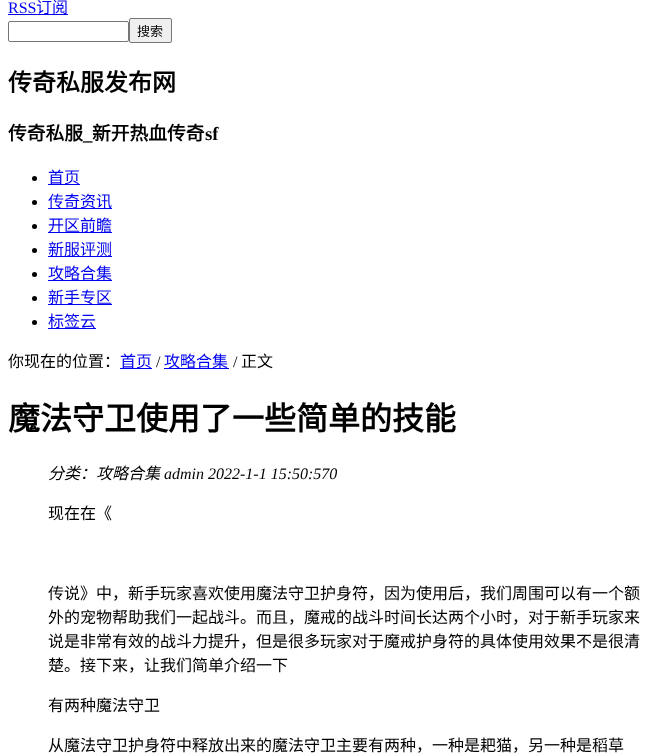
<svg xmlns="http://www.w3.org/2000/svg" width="649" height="753">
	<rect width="100%" height="100%" fill="#FFFFFF" />
	<text x="8" y="13" font-family="Liberation Serif" font-size="16" fill="#0000EE">RSS</text>
	<rect x="8" y="14" width="60" height="1" fill="#0000EE" />
	<text x="36" y="13" font-family="Noto Sans CJK SC" font-size="16" fill="#0000EE">订阅</text>
	<rect x="8.5" y="21.5" width="120" height="20" rx="1.5" fill="none" stroke="#767676" />
	<rect x="129.5" y="18.5" width="42" height="24" rx="1.5" fill="#EFEFEF" stroke="#767676" />
	<text x="137" y="36" font-family="Noto Sans CJK SC" font-size="13" fill="#000000">搜索</text>
	<text x="8" y="91" font-family="Noto Sans CJK SC" font-size="24" font-weight="700" fill="#000000">传奇私服发布网</text>
	<g font-family="Noto Sans CJK SC" font-size="18.75" font-weight="700" fill="#000000">
		<text x="8" y="140">传奇私服</text>
		<text x="92" y="140">新开热血传奇</text>
	</g>
	<g font-family="Liberation Serif" font-size="18.75" font-weight="700" fill="#000000">
		<text x="205" y="140">sf</text>
		<text x="83" y="140">_</text>
	</g>
	<circle cx="34.5" cy="178.5" r="2.5" fill="#000000" />
	<rect x="48" y="184" width="32" height="1" fill="#0000EE" />
	<text x="48" y="183" font-family="Noto Sans CJK SC" font-size="16" fill="#0000EE">首页</text>
	<circle cx="34.5" cy="202.5" r="2.5" fill="#000000" />
	<rect x="48" y="208" width="64" height="1" fill="#0000EE" />
	<text x="48" y="207" font-family="Noto Sans CJK SC" font-size="16" fill="#0000EE">传奇资讯</text>
	<circle cx="34.5" cy="226.5" r="2.5" fill="#000000" />
	<rect x="48" y="232" width="64" height="1" fill="#0000EE" />
	<text x="48" y="231" font-family="Noto Sans CJK SC" font-size="16" fill="#0000EE">开区前瞻</text>
	<circle cx="34.5" cy="250.5" r="2.5" fill="#000000" />
	<rect x="48" y="256" width="64" height="1" fill="#0000EE" />
	<text x="48" y="255" font-family="Noto Sans CJK SC" font-size="16" fill="#0000EE">新服评测</text>
	<circle cx="34.5" cy="274.5" r="2.5" fill="#000000" />
	<rect x="48" y="280" width="64" height="1" fill="#0000EE" />
	<text x="48" y="279" font-family="Noto Sans CJK SC" font-size="16" fill="#0000EE">攻略合集</text>
	<circle cx="34.5" cy="298.5" r="2.5" fill="#000000" />
	<rect x="48" y="304" width="64" height="1" fill="#0000EE" />
	<text x="48" y="303" font-family="Noto Sans CJK SC" font-size="16" fill="#0000EE">新手专区</text>
	<circle cx="34.5" cy="322.5" r="2.5" fill="#000000" />
	<rect x="48" y="328" width="48" height="1" fill="#0000EE" />
	<text x="48" y="327" font-family="Noto Sans CJK SC" font-size="16" fill="#0000EE">标签云</text>
	<text x="8" y="367" font-family="Noto Sans CJK SC" font-size="16" fill="#000000">你现在的位置：</text>
	<rect x="120" y="368" width="32" height="1" fill="#0000EE" />
	<text x="120" y="367" font-family="Noto Sans CJK SC" font-size="16" fill="#0000EE">首页</text>
	<text x="156" y="367" font-family="Liberation Serif" font-size="16" fill="#000000">/</text>
	<rect x="164" y="368" width="65" height="1" fill="#0000EE" />
	<text x="164" y="367" font-family="Noto Sans CJK SC" font-size="16" fill="#0000EE">攻略合集</text>
	<text x="233" y="367" font-family="Liberation Serif" font-size="16" fill="#000000">/</text>
	<text x="241" y="367" font-family="Noto Sans CJK SC" font-size="16" fill="#000000">正文</text>
	<text x="8" y="430" font-family="Noto Sans CJK SC" font-size="32" font-weight="700" fill="#000000">魔法守卫使用了一些简单的技能</text>
	<text x="48" y="479" font-family="Noto Sans CJK SC" font-size="16" font-style="italic" fill="#000000">分类：攻略合集</text>
	<text x="164" y="479" font-family="Liberation Serif" font-size="16" font-style="italic" fill="#000000">admin 2022-1-1 15:50:570</text>
	<g font-family="Noto Sans CJK SC" font-size="16" fill="#000000">
		<text x="48" y="519">现在在《</text>
		<text x="48" y="599">传说》中，新手玩家喜欢使用魔法守卫护身符，因为使用后，我们周围可以有一个额</text>
		<text x="48" y="623">外的宠物帮助我们一起战斗。而且，魔戒的战斗时间长达两个小时，对于新手玩家来</text>
		<text x="48" y="647">说是非常有效的战斗力提升，但是很多玩家对于魔戒护身符的具体使用效果不是很清</text>
		<text x="48" y="671">楚。接下来，让我们简单介绍一下</text>
		<text x="48" y="711">有两种魔法守卫</text>
		<text x="48" y="751">从魔法守卫护身符中释放出来的魔法守卫主要有两种，一种是耙猫，另一种是稻草</text>
	</g>
</svg>
